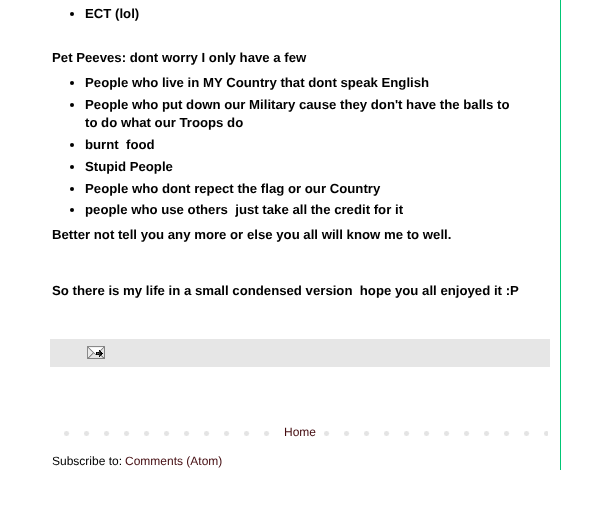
<svg xmlns="http://www.w3.org/2000/svg" width="597" height="532">
	<rect width="100%" height="100%" fill="#FFFFFF" />
	<circle cx="72" cy="14" r="2" fill="#000000" />
	<g font-family="Liberation Sans" font-size="13.2" font-weight="700" fill="#000000">
		<text x="85" y="18">ECT (lol)</text>
		<text x="52" y="62">Pet Peeves: dont worry I only have a few</text>
	</g>
	<circle cx="72" cy="83" r="2" fill="#000000" />
	<text x="85" y="87" font-family="Liberation Sans" font-size="13.2" font-weight="700" fill="#000000">People who live in MY Country that dont speak English</text>
	<circle cx="72" cy="105" r="2" fill="#000000" />
	<g font-family="Liberation Sans" font-size="13.2" font-weight="700" fill="#000000">
		<text x="85" y="109">People who put down our Military cause they don't have the balls to</text>
		<text x="85" y="127">to do what our Troops do</text>
	</g>
	<circle cx="72" cy="145" r="2" fill="#000000" />
	<text x="85" y="149" font-family="Liberation Sans" font-size="13.2" font-weight="700" fill="#000000" xml:space="preserve">burnt  food</text>
	<circle cx="72" cy="167" r="2" fill="#000000" />
	<text x="85" y="171" font-family="Liberation Sans" font-size="13.2" font-weight="700" fill="#000000">Stupid People</text>
	<circle cx="72" cy="189" r="2" fill="#000000" />
	<text x="85" y="193" font-family="Liberation Sans" font-size="13.2" font-weight="700" fill="#000000">People who dont repect the flag or our Country</text>
	<circle cx="72" cy="210" r="2" fill="#000000" />
	<g font-family="Liberation Sans" font-size="13.2" font-weight="700" fill="#000000">
		<text x="85" y="214" xml:space="preserve">people who use others  just take all the credit for it</text>
		<text x="52" y="239">Better not tell you any more or else you all will know me to well.</text>
		<text x="52" y="295" xml:space="preserve">So there is my life in a small condensed version  hope you all enjoyed it :P</text>
	</g>
	<rect x="50" y="339" width="500" height="28" fill="#E6E6E6" />
	<image x="87" y="346" width="18" height="13" href="assets/img1.png" />
	<image x="64" y="431" width="484" height="5" href="assets/img2.png" />
	<rect x="284" y="431" width="26" height="5" fill="#FFFFFF" />
	<text x="284" y="436" font-family="Liberation Sans" font-size="12" fill="#440C10">Home</text>
	<text x="52" y="465" font-family="Liberation Sans" font-size="12" fill="#000000">Subscribe to:</text>
	<text x="125" y="465" font-family="Liberation Sans" font-size="12" fill="#440C10">Comments (Atom)</text>
	<rect x="560" y="0" width="1" height="470" fill="#00C675" />
</svg>
